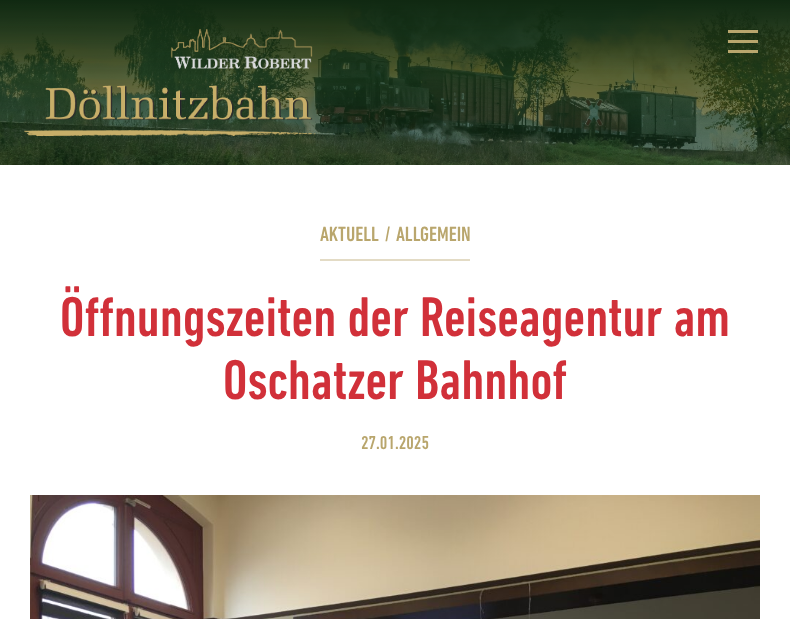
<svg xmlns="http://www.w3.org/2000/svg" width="790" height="619">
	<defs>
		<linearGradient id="g1" gradientUnits="userSpaceOnUse" x1="395" y1="0" x2="395" y2="80"><stop offset="0" stop-color="#000000" stop-opacity="0.33" /><stop offset="1" stop-color="#000000" stop-opacity="0" /></linearGradient>
	</defs>
	<rect width="100%" height="100%" fill="#FFFFFF" />
	<image x="0" y="0" width="790" height="165" href="assets/img1.png" />
	<image x="24" y="29" width="292" height="107" href="assets/img2.png" />
	<rect x="0" y="0" width="790" height="74" fill="url(#g1)" />
	<rect x="728" y="40" width="30" height="3" fill="#B9A66D" />
	<rect x="728" y="30" width="30" height="3" fill="#B9A66D" />
	<rect x="728" y="50" width="30" height="3" fill="#B9A66D" />
	<rect x="320" y="259" width="150" height="2" fill="#E3DBC5" />
	<g font-family="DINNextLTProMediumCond" font-size="21" fill="#B9A66D">
		<text x="320" y="241">AKTUELL</text>
		<text x="385" y="241">/</text>
		<text x="396" y="241">ALLGEMEIN</text>
	</g>
	<g font-family="DINNextLTProMediumCond" font-size="57" fill="#D13039">
		<text x="60" y="336">Öffnungszeiten der Reiseagentur am</text>
		<text x="223" y="399">Oschatzer Bahnhof</text>
	</g>
	<text x="361" y="449" font-family="DINNextLTProMediumCond" font-size="19" fill="#B9A66D">27.01.2025</text>
	<image x="30" y="495" width="730" height="124" href="assets/img3.png" />
</svg>
